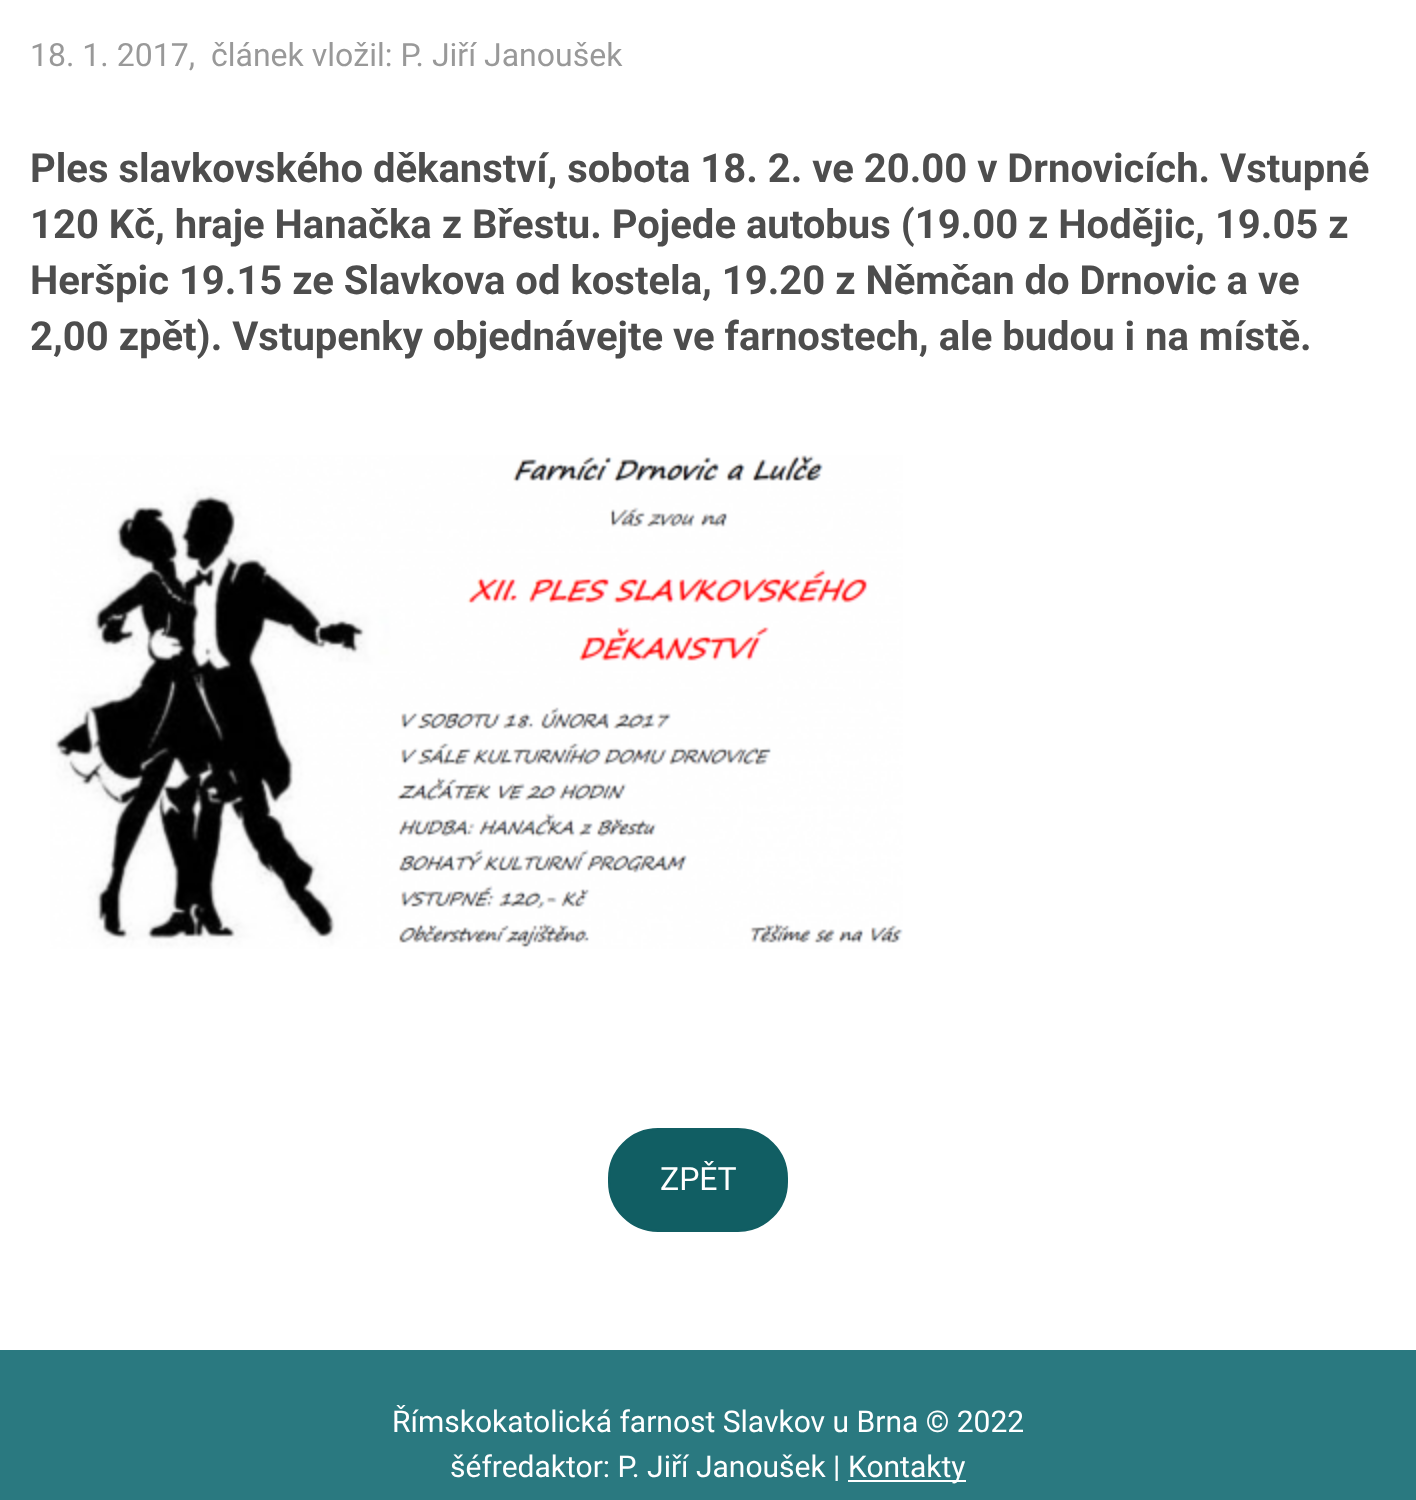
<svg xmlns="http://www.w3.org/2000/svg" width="1416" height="1500">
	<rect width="100%" height="100%" fill="#FFFFFF" />
	<g font-family="Roboto" font-size="32" fill="#999999">
		<text x="30" y="66">18. 1. 2017,</text>
		<text x="211" y="66">článek vložil: P. Jiří Janoušek</text>
	</g>
	<g font-family="Roboto" font-size="40" font-weight="700" fill="#4D4D4D">
		<text x="30" y="182">Ples slavkovského děkanství, sobota 18. 2. ve 20.00 v Drnovicích. Vstupné</text>
		<text x="30" y="238">120 Kč, hraje Hanačka z Břestu. Pojede autobus (19.00 z Hodějic, 19.05 z</text>
		<text x="30" y="294">Heršpic 19.15 ze Slavkova od kostela, 19.20 z Němčan do Drnovic a ve</text>
		<text x="30" y="350">2,00 zpět). Vstupenky objednávejte ve farnostech, ale budou i na místě.</text>
	</g>
	<image x="50" y="455" width="853" height="494" href="assets/img1.png" />
	<rect x="609" y="1129" width="178" height="102" rx="49" fill="#115E63" stroke="#115E63" stroke-width="2" />
	<text x="660" y="1190" font-family="Roboto" font-size="32" fill="#FFFFFF">ZPĚT</text>
	<rect x="0" y="1350" width="1416" height="150" fill="#2A7980" />
	<g font-family="Roboto" font-size="30" fill="#FFFFFF">
		<text x="392" y="1432">Římskokatolická farnost Slavkov u Brna © 2022</text>
		<text x="450" y="1477">šéfredaktor: P. Jiří Janoušek |</text>
	</g>
	<rect x="848" y="1480" width="118" height="2" fill="#FFFFFF" />
	<text x="848" y="1477" font-family="Roboto" font-size="30" fill="#FFFFFF">Kontakty</text>
</svg>
